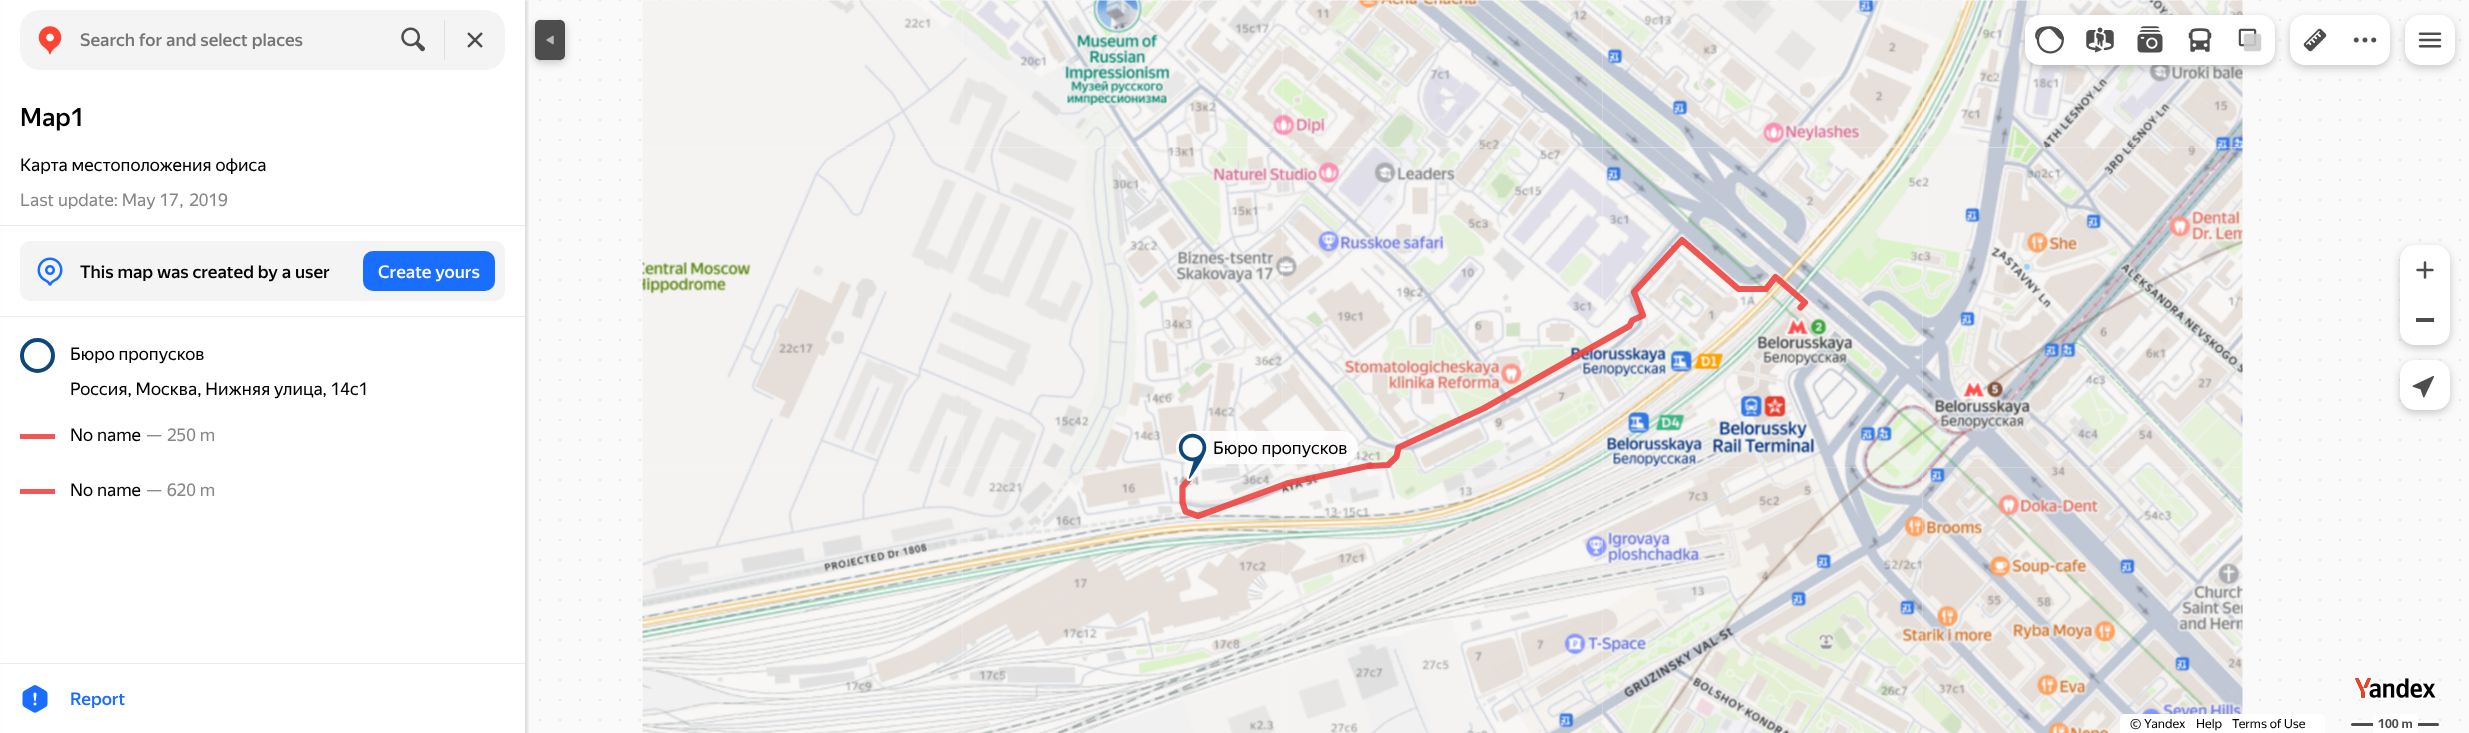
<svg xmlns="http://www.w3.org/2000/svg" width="2469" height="733">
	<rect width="100%" height="100%" fill="#FFFFFF" />
	<image x="525" y="0" width="1944" height="733" href="assets/img1.png" />
	<rect x="3" y="0" width="525" height="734" fill="#000000" fill-opacity="0.1" filter="blur(1px)" />
	<rect x="535" y="23" width="30" height="40" rx="5" fill="#000000" fill-opacity="0.2" filter="blur(4px)" />
	<rect x="2" y="0" width="523" height="733" fill="#FFFFFF" />
	<rect x="20" y="10" width="485" height="60" rx="20" fill="#F4F4F4" />
	<image x="38" y="26" width="24" height="29" href="assets/img2.png" />
	<text x="80" y="46" font-family="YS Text" font-size="17.5" font-weight="500" fill="#757575">Search for and select places</text>
	<image x="401" y="27" width="24" height="25" href="assets/img3.png" />
	<rect x="444" y="20" width="1" height="40" fill="#E0E0E0" />
	<image x="467" y="32" width="16" height="16" href="assets/img4.png" />
	<image x="1282" y="147" width="321" height="321" href="assets/img26.png" />
	<image x="962" y="0" width="321" height="148" href="assets/img20.png" />
	<image x="1602" y="147" width="321" height="321" href="assets/img27.png" />
	<image x="1282" y="0" width="321" height="148" href="assets/img21.png" />
	<image x="1602" y="0" width="321" height="148" href="assets/img22.png" />
	<image x="1922" y="0" width="321" height="148" href="assets/img23.png" />
	<rect x="2025" y="18" width="250" height="50" rx="15" fill="#000000" fill-opacity="0.2" filter="blur(4px)" />
	<path d="M2040 15H2075V65H2040C2031.5 65 2025 58.5 2025 50V30C2025 21.5 2031.5 15 2040 15Z" fill="#FFFFFF" />
	<image x="2035" y="26" width="29" height="28" href="assets/img5.png" />
	<rect x="2075" y="15" width="150" height="50" fill="#FFFFFF" />
	<image x="2086" y="27" width="28" height="26" href="assets/img6.png" />
	<path d="M2225 15H2260C2268.5 15 2275 21.5 2275 30V50C2275 58.5 2268.5 65 2260 65H2225Z" fill="#FFFFFF" />
	<image x="2238" y="28" width="24" height="24" href="assets/img7.png" />
	<image x="2137" y="26" width="26" height="27" href="assets/img8.png" />
	<image x="2188" y="28" width="24" height="24" href="assets/img9.png" />
	<rect x="2290" y="18" width="100" height="50" rx="15" fill="#000000" fill-opacity="0.2" filter="blur(4px)" />
	<path d="M2305 15H2340V65H2305C2296.5 65 2290 58.5 2290 50V30C2290 21.5 2296.5 15 2305 15Z" fill="#FFFFFF" />
	<image x="2303" y="28" width="24" height="24" href="assets/img10.png" />
	<path d="M2340 15H2375C2383.5 15 2390 21.5 2390 30V50C2390 58.5 2383.5 65 2375 65H2340Z" fill="#FFFFFF" />
	<image x="2353" y="37" width="24" height="6" href="assets/img11.png" />
	<rect x="2405" y="18" width="50" height="50" rx="15" fill="#000000" fill-opacity="0.2" filter="blur(4px)" />
	<rect x="2405" y="15" width="50" height="50" rx="15" fill="#FFFFFF" />
	<image x="2418" y="32" width="24" height="16" href="assets/img12.png" />
	<rect x="2400" y="248" width="50" height="100" rx="15" fill="#000000" fill-opacity="0.2" filter="blur(4px)" />
	<path d="M2415 245H2435C2443.5 245 2450 251.5 2450 260V295H2400V260C2400 251.5 2406.5 245 2415 245Z" fill="#FFFFFF" />
	<image x="2416" y="261" width="18" height="18" href="assets/img13.png" />
	<path d="M2400 295H2450V330C2450 338.5 2443.5 345 2435 345H2415C2406.5 345 2400 338.5 2400 330Z" fill="#FFFFFF" />
	<rect x="2416" y="318" width="18" height="4" fill="#4D4D4D" />
	<rect x="2400" y="363" width="50" height="50" rx="15" fill="#000000" fill-opacity="0.2" filter="blur(4px)" />
	<rect x="2400" y="360" width="50" height="50" rx="15" fill="#FFFFFF" />
	<image x="2412" y="376" width="22" height="22" href="assets/img14.png" />
	<rect x="535" y="20" width="30" height="40" rx="5" fill="#4D4D4D" />
	<image x="546" y="35" width="8" height="10" href="assets/img15.png" />
	<text x="20" y="126" font-family="YS Text" font-size="25" font-weight="500" fill="#000000">Map1</text>
	<rect x="0" y="225" width="525" height="1" fill="#EBEBEB" />
	<text x="20" y="171" font-family="YS Text" font-size="17.5" fill="#000000">Карта местоположения офиса</text>
	<text x="20" y="206" font-family="YS Text" font-size="17.5" fill="#878787">Last update: May 17, 2019</text>
	<rect x="0" y="316" width="525" height="1" fill="#EBEBEB" />
	<rect x="20" y="241" width="485" height="60" rx="10" fill="#F4F4F4" />
	<image x="37" y="257" width="26" height="29" href="assets/img16.png" />
	<text x="80" y="278" font-family="YS Text" font-size="17.5" font-weight="500" fill="#000000">This map was created by a user</text>
	<rect x="363" y="251" width="132" height="40" rx="10" fill="#196DFF" />
	<text x="378" y="278" font-family="YS Text" font-size="17.5" font-weight="500" fill="#FFFFFF">Create yours</text>
	<circle cx="37.5" cy="355.5" r="15.5" fill="none" stroke="#0E4779" stroke-width="4" />
	<g font-family="YS Text" font-size="17.5" fill="#000000">
		<text x="70" y="360">Бюро пропусков</text>
		<text x="70" y="395">Россия, Москва, Нижняя улица, 14с1</text>
	</g>
	<rect x="20" y="434" width="35" height="5" fill="#EF5856" />
	<text x="70" y="441" font-family="YS Text" font-size="17.5" fill="#000000">No name</text>
	<g font-family="YS Text" font-size="17.5" fill="#878787">
		<text x="146" y="441">—</text>
		<text x="167" y="441">250 m</text>
	</g>
	<rect x="20" y="489" width="35" height="5" fill="#EF5856" />
	<text x="70" y="496" font-family="YS Text" font-size="17.5" fill="#000000">No name</text>
	<g font-family="YS Text" font-size="17.5" fill="#878787">
		<text x="146" y="496">—</text>
		<text x="167" y="496">620 m</text>
	</g>
	<rect x="0" y="663" width="525" height="1" fill="#EBEBEB" />
	<image x="22" y="685" width="26" height="28" href="assets/img17.png" />
	<text x="70" y="705" font-family="YS Text" font-size="17.5" font-weight="500" fill="#196DFF">Report</text>
	<image x="2355" y="678" width="81" height="22" href="assets/img18.png" />
	<image x="1922" y="147" width="321" height="321" href="assets/img28.png" />
	<image x="1282" y="467" width="321" height="266" href="assets/img31.png" />
	<image x="1602" y="467" width="321" height="266" href="assets/img32.png" />
	<image x="1922" y="467" width="321" height="266" href="assets/img33.png" />
	<path d="M2125 714H2320C2323 714 2325 716 2325 719V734H2120V719C2120 716 2122 714 2125 714Z" fill="#FFFFFF" />
	<g font-family="YS Text" font-size="12.5" fill="#000000">
		<text x="2130" y="728">© Yandex</text>
		<text x="2196" y="728">Help</text>
		<text x="2232" y="728">Terms of Use</text>
	</g>
	<rect x="2349" y="720" width="92" height="8" rx="4" fill="#FFFFFF" fill-opacity="0.6" />
	<rect x="2351" y="723" width="88" height="3" rx="1.5" fill="#4D4D4D" />
	<path d="M2378 714H2413C2416 714 2418 716 2418 719V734H2373V719C2373 716 2375 714 2378 714Z" fill="#FFFFFF" />
	<text x="2378" y="728" font-family="YS Text" font-size="12.5" font-weight="700" fill="#4D4D4D">100 m</text>
	<image x="642" y="147" width="321" height="321" href="assets/img24.png" />
	<image x="962" y="147" width="321" height="321" href="assets/img25.png" />
	<image x="642" y="0" width="321" height="148" href="assets/img19.png" />
	<image x="642" y="467" width="321" height="266" href="assets/img29.png" />
	<image x="962" y="467" width="321" height="266" href="assets/img30.png" />
	<path d="M1800.5 307.5L1805 302.5L1775.5 277L1766 289H1738.5L1682 240L1634 292L1643 315.5L1632 320.5L1629.5 326L1483.5 408.5L1398.5 447.5L1396.5 456.5L1388 465L1369.5 466" fill="none" stroke="#ED4543" stroke-opacity="0.9" stroke-width="6.2" stroke-linecap="round" stroke-linejoin="round" />
	<path d="M1370 465.5L1288.5 483L1198 516L1185.5 511.5L1182.5 502.5V487L1189 479" fill="none" stroke="#ED4543" stroke-opacity="0.9" stroke-width="6.2" stroke-linecap="round" stroke-linejoin="round" />
	<rect x="1176" y="431" width="182" height="33" rx="16.5" fill="#FFFFFF" fill-opacity="0.85" />
	<image x="1176" y="431" width="32" height="50" href="assets/img34.png" />
	<text x="1213" y="454" font-family="YS Text" font-size="17.5" fill="#000000">Бюро пропусков</text>
</svg>
